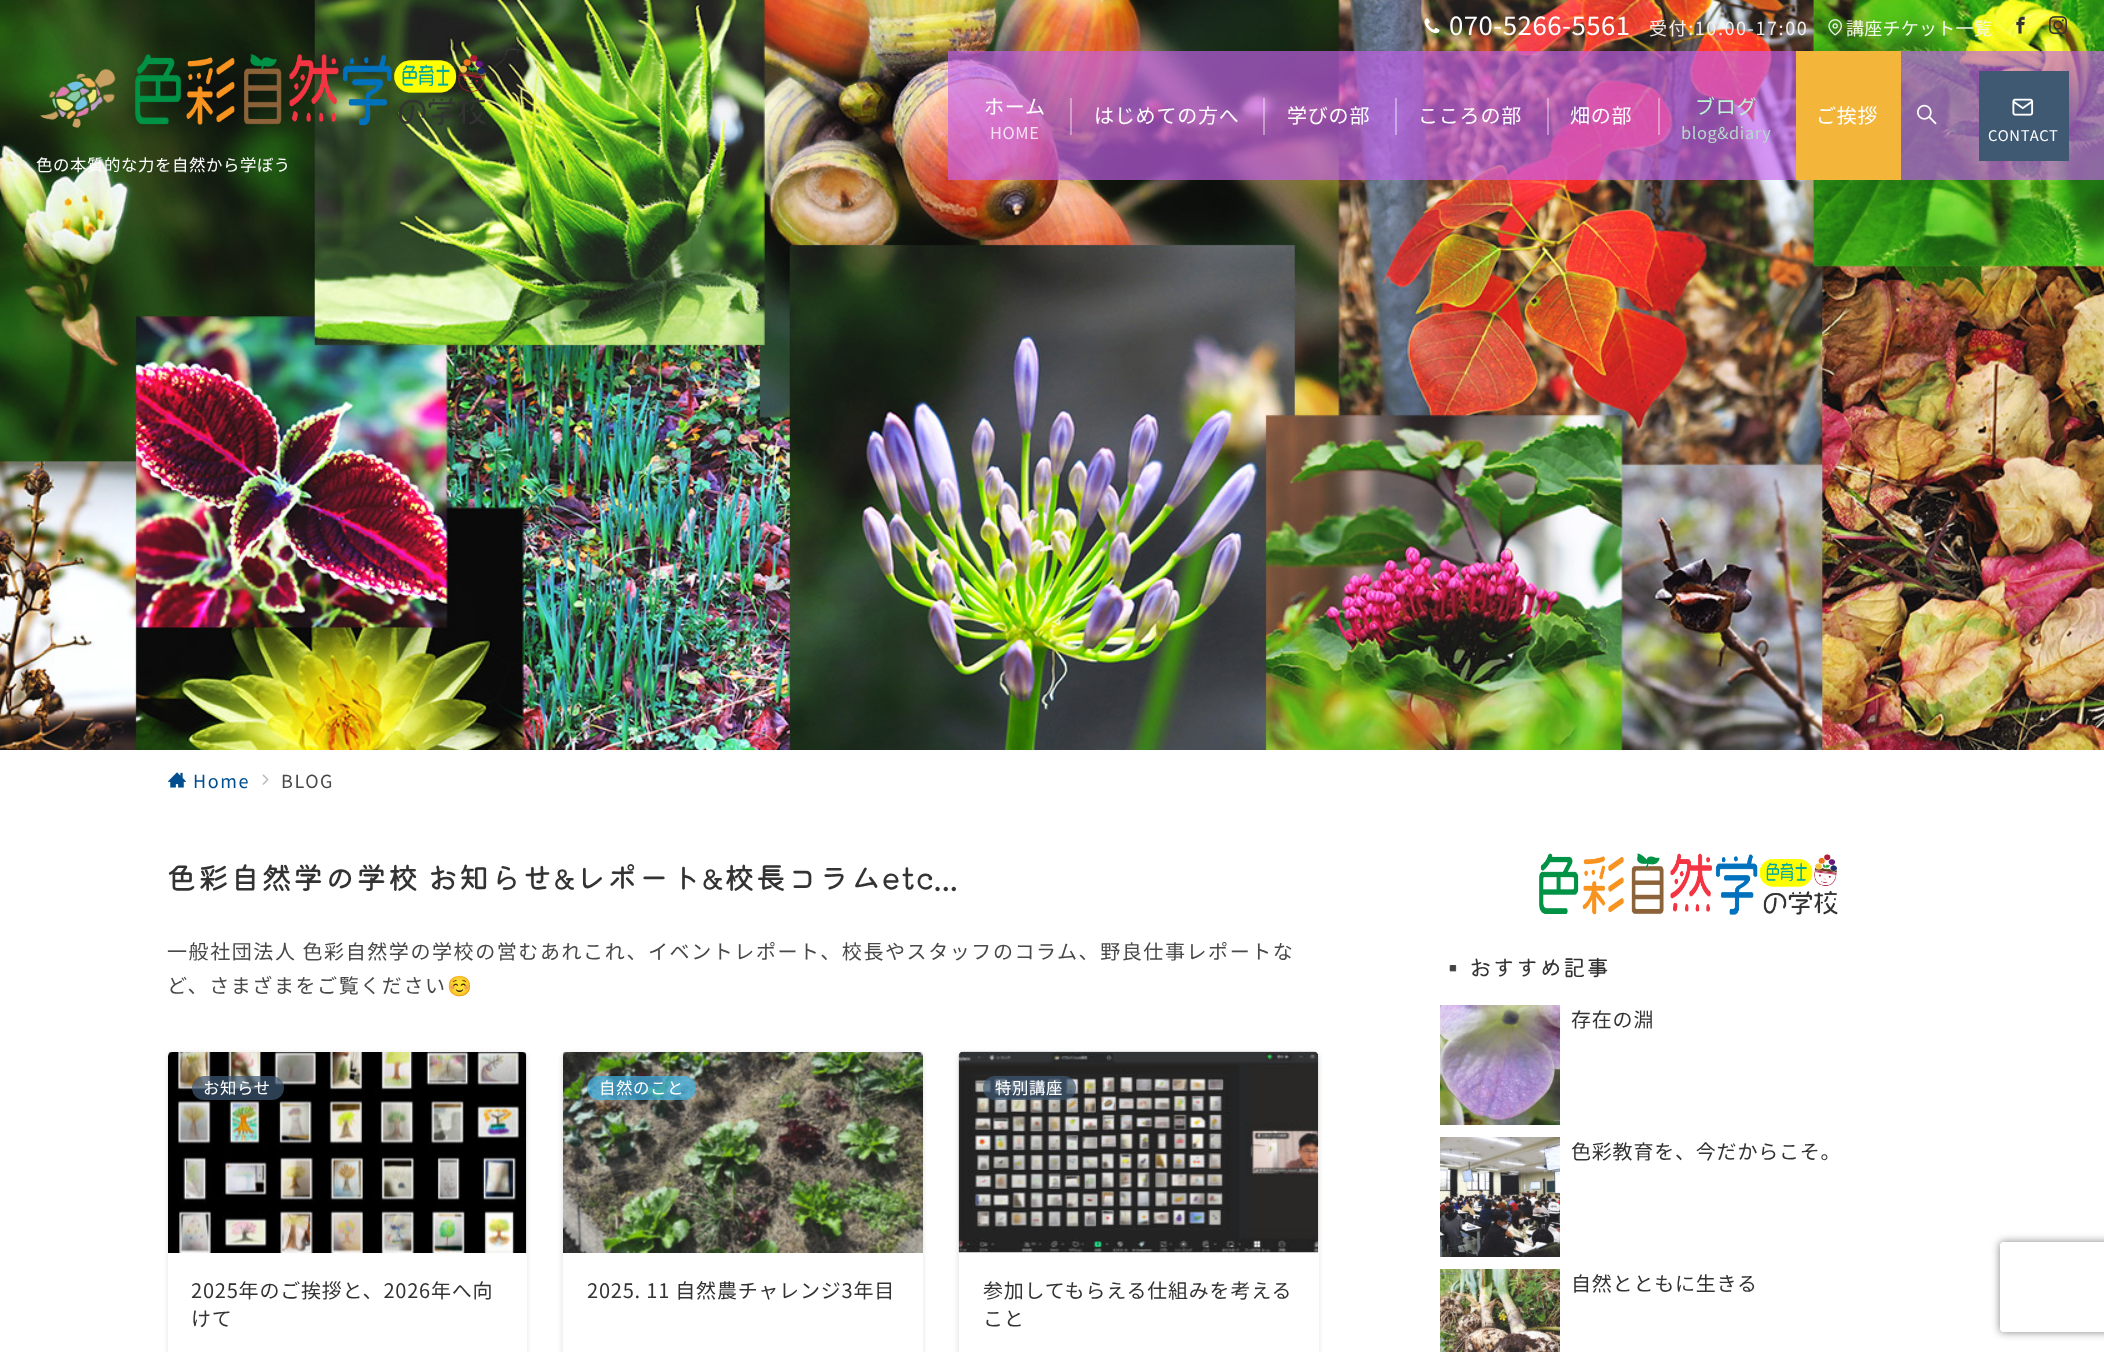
<svg xmlns="http://www.w3.org/2000/svg" width="2104" height="1352">
	<defs>
		<clipPath id="clip1"><path d="M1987 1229H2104V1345H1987ZM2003 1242H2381C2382.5 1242 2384 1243.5 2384 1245V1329C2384 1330.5 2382.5 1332 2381 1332H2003C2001.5 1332 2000 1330.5 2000 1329V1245C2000 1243.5 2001.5 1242 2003 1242Z" clip-rule="evenodd" /></clipPath>
	</defs>
	<rect width="100%" height="100%" fill="#FFFFFF" />
	<image x="0" y="0" width="2104" height="750" href="assets/img9.png" />
	<image x="1424" y="18" width="16" height="16" href="assets/img1.png" />
	<text x="1449" y="35" font-family="Noto Sans JP" font-size="25.75" font-weight="100" letter-spacing="0.5" fill="#FFFFFF">070-5266-5561</text>
	<text x="1649" y="35" font-family="Noto Sans JP" font-size="18" font-weight="100" letter-spacing="1.58" fill="#F3EFED">受付:10:00-17:00</text>
	<image x="1828" y="19" width="14" height="17" href="assets/img2.png" />
	<text x="1846" y="35" font-family="Noto Sans JP" font-size="18" font-weight="100" letter-spacing="0.25" fill="#F1F8E8">講座チケット一覧</text>
	<image x="2016" y="16" width="9" height="18" href="assets/img3.png" />
	<image x="2049" y="16" width="18" height="19" href="assets/img4.png" />
	<rect x="948" y="51" width="848" height="129" fill="#C561ED" fill-opacity="0.66" />
	<text x="984" y="114" font-family="Noto Sans JP" font-size="20" font-weight="100" letter-spacing="0.8" fill="#FFFFFF">ホーム</text>
	<text x="990" y="139" font-family="Noto Sans JP" font-size="16.4" font-weight="100" letter-spacing="0.6" fill="#F6E2F3">HOME</text>
	<rect x="1070" y="98" width="2" height="37" fill="#FFFFFF" fill-opacity="0.4" />
	<text x="1094" y="123" font-family="Noto Sans JP" font-size="20" font-weight="100" letter-spacing="0.8" fill="#FFFFFF">はじめての方へ</text>
	<rect x="1263" y="98" width="2" height="37" fill="#FFFFFF" fill-opacity="0.4" />
	<text x="1287" y="123" font-family="Noto Sans JP" font-size="20" font-weight="100" letter-spacing="0.8" fill="#FFFFFF">学びの部</text>
	<rect x="1395" y="98" width="2" height="37" fill="#FFFFFF" fill-opacity="0.4" />
	<text x="1418" y="123" font-family="Noto Sans JP" font-size="20" font-weight="100" letter-spacing="0.8" fill="#FFFFFF">こころの部</text>
	<rect x="1547" y="98" width="2" height="37" fill="#FFFFFF" fill-opacity="0.4" />
	<text x="1570" y="123" font-family="Noto Sans JP" font-size="20" font-weight="100" letter-spacing="0.8" fill="#FFFFFF">畑の部</text>
	<rect x="1658" y="98" width="2" height="37" fill="#FFFFFF" fill-opacity="0.4" />
	<text x="1695" y="114" font-family="Noto Sans JP" font-size="20" font-weight="100" letter-spacing="0.8" fill="#BBF7D3">ブログ</text>
	<text x="1681" y="139" font-family="Noto Sans JP" font-size="16.4" font-weight="100" letter-spacing="0.6" fill="#B6D9CE">blog&amp;diary</text>
	<rect x="1796" y="51" width="105" height="129" fill="#F4B63A" />
	<text x="1816" y="123" font-family="Noto Sans JP" font-size="20" font-weight="100" letter-spacing="0.8" fill="#FFFFFF">ご挨拶</text>
	<rect x="1901" y="51" width="203" height="129" fill="#C561ED" fill-opacity="0.66" />
	<image x="1917" y="104" width="20" height="21" href="assets/img5.png" />
	<rect x="1979" y="71" width="90" height="90" fill="#3F5973" />
	<image x="2012" y="98" width="22" height="18" href="assets/img6.png" />
	<text x="1988" y="141" font-family="Noto Sans JP" font-size="14.75" font-weight="100" letter-spacing="0.75" fill="#FFFFFF">CONTACT</text>
	<image x="40" y="69" width="76" height="59" href="assets/img7.png" />
	<image x="135" y="54" width="351" height="72" href="assets/img8.png" />
	<text x="36" y="171" font-family="Noto Sans JP" font-size="16.4" font-weight="100" letter-spacing="0.6" fill="#FFFFFF">色の本質的な力を自然から学ぼう</text>
	<image x="168" y="772" width="18" height="16" href="assets/img10.png" />
	<text x="193" y="788" font-family="Noto Sans JP" font-size="18" font-weight="100" letter-spacing="1.58" fill="#004E8E">Home</text>
	<image x="262" y="774" width="7" height="11" href="assets/img11.png" />
	<text x="281" y="788" font-family="Noto Sans JP" font-size="18" font-weight="100" letter-spacing="1.58" fill="#484848">BLOG</text>
	<text x="167" y="889" word-spacing="-1" font-family="Kiwi Maru" font-size="30" font-weight="500" letter-spacing="1.58" fill="#333333">色彩自然学の学校 お知らせ&amp;レポート&amp;校長コラムetc...</text>
	<g font-family="Noto Sans JP" font-size="20" font-weight="100" letter-spacing="1.58" fill="#484848">
		<text x="167" y="959">一般社団法人 色彩自然学の学校の営むあれこれ、イベントレポート、校長やスタッフのコラム、野良仕事レポートな</text>
		<text x="167" y="993">ど、さまざまをご覧ください</text>
	</g>
	<text x="447" y="993" font-family="Noto Color Emoji" font-size="20" letter-spacing="1.58" fill="#484848">☺️</text>
	<rect x="167" y="1052" width="361" height="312" rx="6" fill="#000000" fill-opacity="0.08" filter="blur(2px)" />
	<rect x="168" y="1052" width="359" height="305" rx="5" fill="#FFFFFF" />
	<image x="168" y="1052" width="359" height="201" href="assets/img12.png" />
	<rect x="192" y="1076" width="92" height="24" rx="12" fill="#3F5973" fill-opacity="0.7" />
	<text x="203" y="1094" font-family="Noto Sans JP" font-size="16.4" font-weight="100" letter-spacing="0.6" fill="#FFFFFF">お知らせ</text>
	<g font-family="Noto Sans JP" font-size="20" font-weight="100" letter-spacing="0.8" fill="#333333">
		<text x="191" y="1298">2025年のご挨拶と、2026年へ向</text>
		<text x="191" y="1326">けて</text>
	</g>
	<rect x="561" y="1052" width="363" height="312" rx="6" fill="#000000" fill-opacity="0.08" filter="blur(2px)" />
	<rect x="563" y="1052" width="360" height="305" rx="5" fill="#FFFFFF" />
	<image x="563" y="1052" width="360" height="201" href="assets/img13.png" />
	<rect x="587" y="1076" width="109" height="24" rx="12" fill="#3FB7EA" fill-opacity="0.7" />
	<text x="599" y="1094" font-family="Noto Sans JP" font-size="16.4" font-weight="100" letter-spacing="0.6" fill="#FFFFFF">自然のこと</text>
	<text x="587" y="1298" font-family="Noto Sans JP" font-size="20" font-weight="100" letter-spacing="0.8" fill="#333333">2025. 11 自然農チャレンジ3年目</text>
	<rect x="957" y="1052" width="363" height="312" rx="6" fill="#000000" fill-opacity="0.08" filter="blur(2px)" />
	<rect x="959" y="1052" width="360" height="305" rx="5" fill="#FFFFFF" />
	<image x="958" y="1051" width="361" height="202" href="assets/img14.png" />
	<rect x="983" y="1076" width="93" height="24" rx="12" fill="#3F5973" fill-opacity="0.7" />
	<text x="995" y="1094" font-family="Noto Sans JP" font-size="16.4" font-weight="100" letter-spacing="0.6" fill="#FFFFFF">特別講座</text>
	<g font-family="Noto Sans JP" font-size="20" font-weight="100" letter-spacing="0.8" fill="#333333">
		<text x="983" y="1298">参加してもらえる仕組みを考える</text>
		<text x="983" y="1326">こと</text>
	</g>
	<image x="1539" y="853" width="299" height="62" href="assets/img15.png" />
	<text x="1439" y="976" font-family="Noto Color Emoji" font-size="22.5" letter-spacing="1" fill="#333333">▪️</text>
	<text x="1469" y="976" font-family="Kiwi Maru" font-size="22.5" letter-spacing="1" fill="#333333">おすすめ記事</text>
	<image x="1440" y="1005" width="120" height="120" href="assets/img16.png" />
	<text x="1571" y="1027" font-family="Noto Sans JP" font-size="20" font-weight="100" letter-spacing="0.8" fill="#333333">存在の淵</text>
	<image x="1440" y="1137" width="120" height="120" href="assets/img17.png" />
	<text x="1571" y="1159" font-family="Noto Sans JP" font-size="20" font-weight="100" letter-spacing="0.8" fill="#333333">色彩教育を、今だからこそ。</text>
	<image x="1440" y="1269" width="120" height="83" href="assets/img18.png" />
	<text x="1571" y="1291" font-family="Noto Sans JP" font-size="20" font-weight="100" letter-spacing="0.8" fill="#333333">自然とともに生きる</text>
	<g clip-path="url(#clip1)">
		<rect x="2000" y="1242" width="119" height="90" rx="3" fill="#808080" filter="blur(4px)" />
	</g>
</svg>
